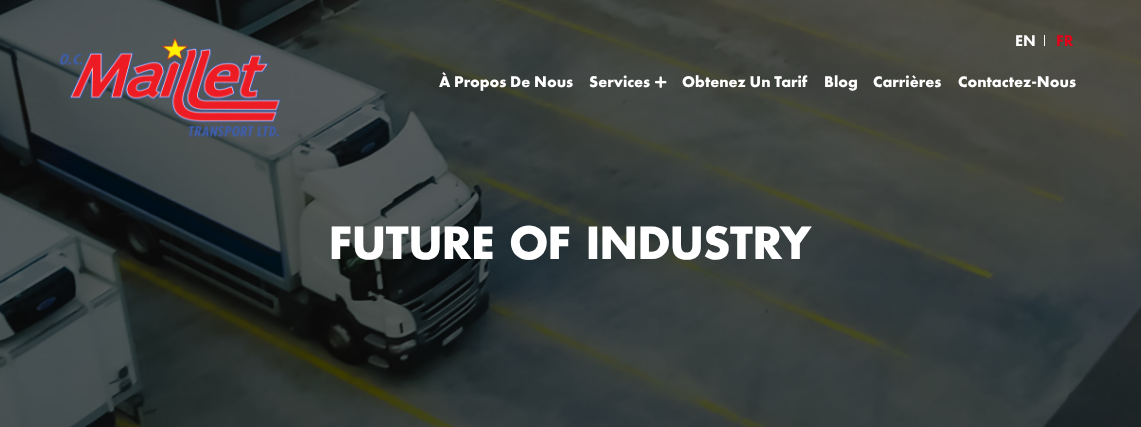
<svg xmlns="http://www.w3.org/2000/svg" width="1141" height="427">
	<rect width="100%" height="100%" fill="#FFFFFF" />
	<image x="0" y="0" width="1141" height="427" href="assets/img3.png" />
	<rect x="1044" y="35" width="1" height="11" fill="#FFFFFF" />
	<text x="1015" y="46" font-family="Futura PT" font-size="16" font-weight="900" fill="#FFFFFF">EN</text>
	<text x="1056" y="46" font-family="Futura PT" font-size="16" font-weight="900" fill="#E50019">FR</text>
	<image x="59" y="37" width="223" height="100" href="assets/img1.png" />
	<g font-family="Futura PT" font-size="16" font-weight="700" fill="#FFFFFF">
		<text x="439" y="87">À Propos De Nous</text>
		<text x="589" y="87">Services</text>
	</g>
	<image x="655" y="76" width="12" height="12" href="assets/img2.png" />
	<g font-family="Futura PT" font-size="16" font-weight="700" fill="#FFFFFF">
		<text x="682" y="87">Obtenez Un Tarif</text>
		<text x="824" y="87">Blog</text>
		<text x="873" y="87">Carrières</text>
		<text x="958" y="87">Contactez-Nous</text>
	</g>
	<text x="329" y="259" font-family="Futura" font-size="43" font-weight="700" fill="#FFFFFF">FUTURE OF INDUSTRY</text>
</svg>
